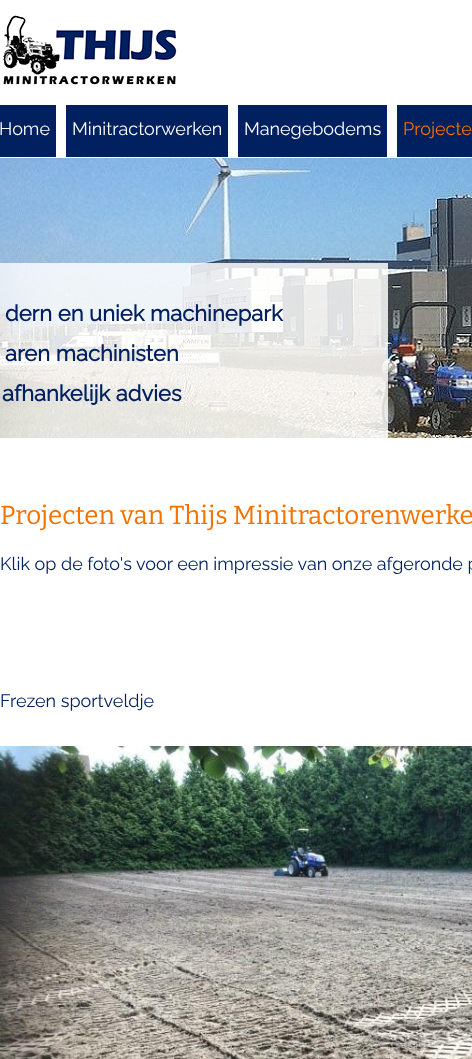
<svg xmlns="http://www.w3.org/2000/svg" width="472" height="1059">
	<rect width="100%" height="100%" fill="#FFFFFF" />
	<image x="3" y="15" width="174" height="70" href="assets/img1.png" />
	<rect x="0" y="105" width="56" height="52" fill="#012060" />
	<text x="-1" y="135" font-family="Raleway" font-size="18" font-weight="100" fill="#FFFFFF">Home</text>
	<rect x="66" y="105" width="162" height="52" fill="#012060" />
	<text x="72" y="135" font-family="Raleway" font-size="18" font-weight="100" fill="#FFFFFF">Minitractorwerken</text>
	<rect x="238" y="105" width="149" height="52" fill="#012060" />
	<text x="244" y="135" font-family="Raleway" font-size="18" font-weight="100" fill="#FFFFFF">Manegebodems</text>
	<rect x="397" y="105" width="75" height="52" fill="#012060" />
	<text x="403" y="135" font-family="Raleway" font-size="18" font-weight="100" fill="#F57100">Projecte</text>
	<image x="0" y="158" width="472" height="280" href="assets/img2.png" />
	<image x="0" y="263" width="388" height="175" href="assets/img3.png" />
	<g font-family="Raleway" font-size="22" font-weight="700" fill="#012060">
		<text x="5" y="321">dern en uniek machinepark</text>
		<text x="5" y="361">aren machinisten</text>
		<text x="2" y="401">afhankelijk advies</text>
	</g>
	<text x="0" y="524" font-family="Bitter" font-size="26" font-weight="100" fill="#F57100">Projecten van Thijs Minitractorenwerke</text>
	<g font-family="Raleway" font-size="18" font-weight="100" fill="#012060">
		<text x="0" y="570">Klik op de foto's voor een impressie van onze afgeronde p</text>
		<text x="0" y="707">Frezen sportveldje</text>
	</g>
	<image x="0" y="746" width="472" height="313" href="assets/img4.png" />
</svg>
